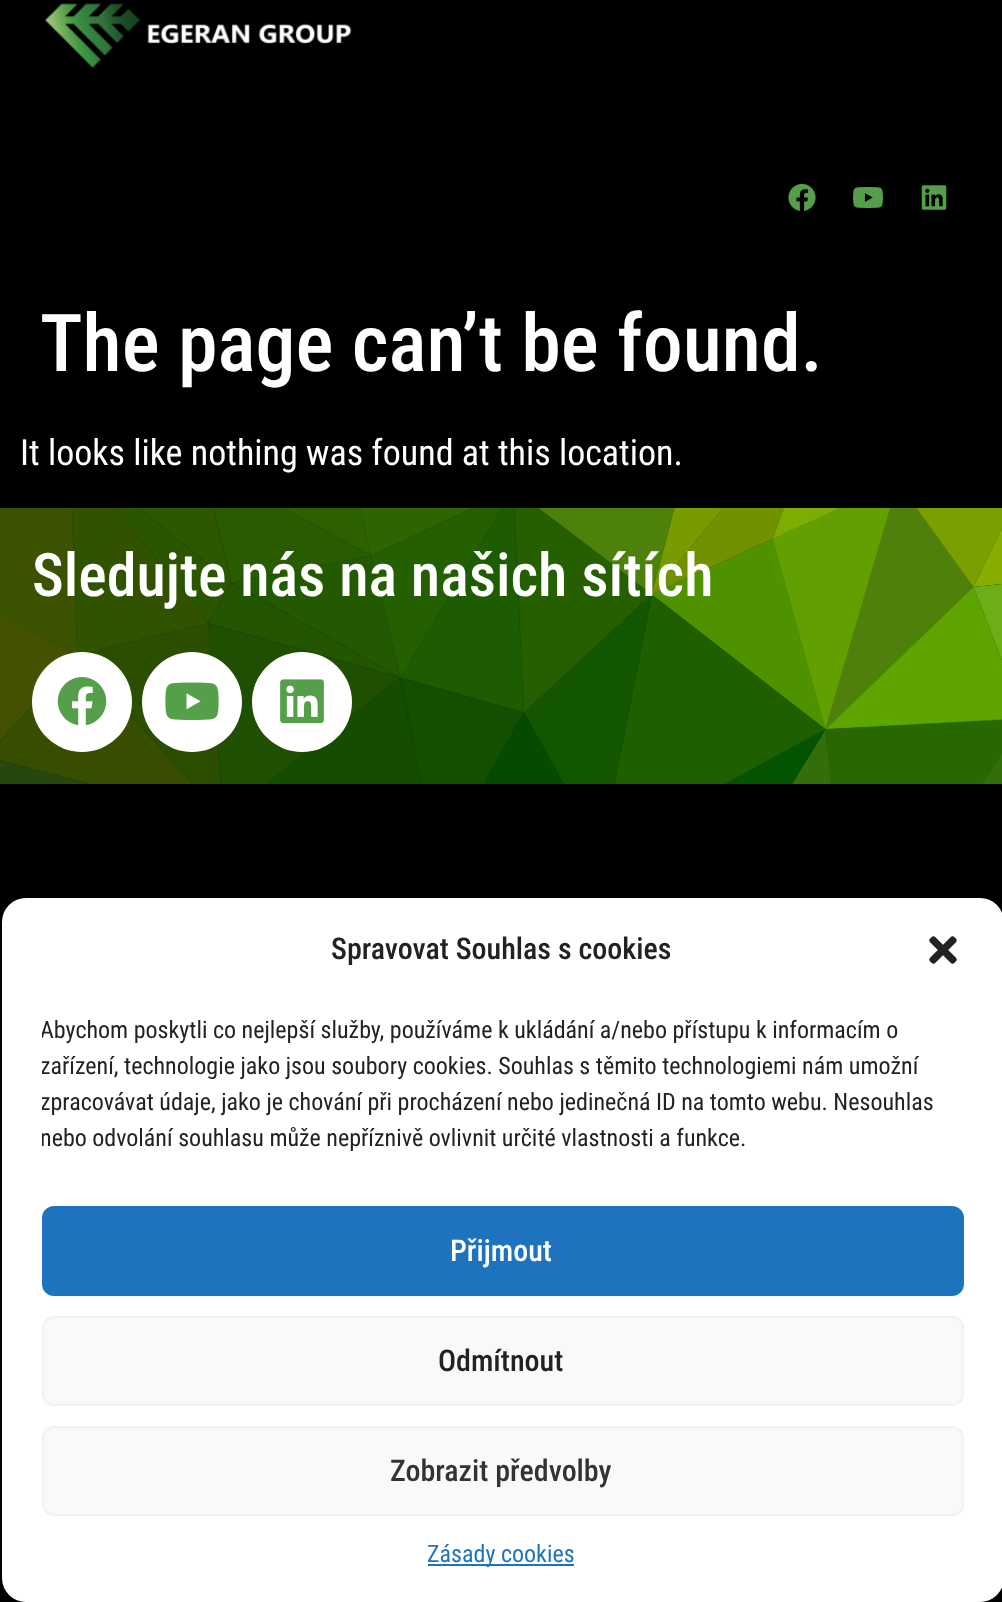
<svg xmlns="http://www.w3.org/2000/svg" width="1002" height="1602">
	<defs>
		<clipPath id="clip1"><rect x="42" y="1012" width="922" height="154" /></clipPath>
	</defs>
	<rect width="100%" height="100%" fill="#000000" />
	<image x="45" y="3" width="307" height="65" href="assets/img1.png" />
	<image x="788" y="183" width="28" height="28" href="assets/img2.png" />
	<image x="853" y="187" width="30" height="21" href="assets/img3.png" />
	<image x="921" y="185" width="26" height="25" href="assets/img4.png" />
	<text x="40" y="371" font-family="Roboto Condensed" font-size="80" font-weight="500" fill="#FFFFFF">The page can’t be found.</text>
	<text x="20" y="465" font-family="Roboto Condensed" font-size="36" fill="#FFFFFF">It looks like nothing was found at this location.</text>
	<image x="0" y="508" width="1002" height="276" href="assets/img5.png" />
	<text x="32" y="596" font-family="Roboto Condensed" font-size="60" font-weight="500" fill="#FFFFFF">Sledujte nás na našich sítích</text>
	<circle cx="82" cy="702" r="50" fill="#FFFFFF" />
	<image x="57" y="677" width="50" height="49" href="assets/img6.png" />
	<circle cx="192" cy="702" r="50" fill="#FFFFFF" />
	<image x="165" y="682" width="54" height="38" href="assets/img7.png" />
	<circle cx="302" cy="702" r="50" fill="#FFFFFF" />
	<image x="280" y="679" width="44" height="45" href="assets/img8.png" />
	<rect x="2" y="898" width="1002" height="704" rx="24" fill="#FFFFFF" />
	<text x="331" y="959" font-family="Roboto Condensed" font-size="30" font-weight="500" fill="#222222">Spravovat Souhlas s cookies</text>
	<image x="929" y="936" width="28" height="28" href="assets/img9.png" />
	<g clip-path="url(#clip1)">
		<g font-family="Roboto Condensed" font-size="24" fill="#222222">
			<text x="40" y="1038">Abychom poskytli co nejlepší služby, používáme k ukládání a/nebo přístupu k informacím o</text>
			<text x="40" y="1074">zařízení, technologie jako jsou soubory cookies. Souhlas s těmito technologiemi nám umožní</text>
			<text x="40" y="1110">zpracovávat údaje, jako je chování při procházení nebo jedinečná ID na tomto webu. Nesouhlas</text>
			<text x="40" y="1146">nebo odvolání souhlasu může nepříznivě ovlivnit určité vlastnosti a funkce.</text>
		</g>
	</g>
	<rect x="43" y="1207" width="920" height="88" rx="11" fill="#1E73BE" stroke="#1E73BE" stroke-width="2" />
	<text x="450" y="1261" font-family="Roboto Condensed" font-size="30" font-weight="500" fill="#FFFFFF">Přijmout</text>
	<rect x="43" y="1317" width="920" height="88" rx="11" fill="#F9F9F9" stroke="#F2F2F2" stroke-width="2" />
	<text x="438" y="1371" font-family="Roboto Condensed" font-size="30" font-weight="500" fill="#222222">Odmítnout</text>
	<rect x="43" y="1427" width="920" height="88" rx="11" fill="#F9F9F9" stroke="#F2F2F2" stroke-width="2" />
	<text x="390" y="1481" font-family="Roboto Condensed" font-size="30" font-weight="500" fill="#333333">Zobrazit předvolby</text>
	<rect x="428" y="1564" width="146" height="2" fill="#1E73BE" />
	<text x="427" y="1562" font-family="Roboto Condensed" font-size="24" fill="#1E73BE">Zásady cookies</text>
</svg>
